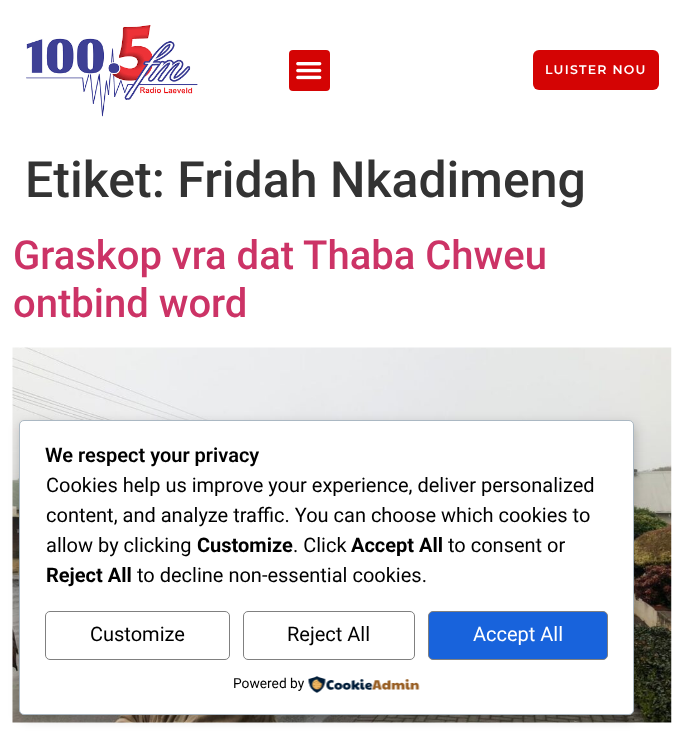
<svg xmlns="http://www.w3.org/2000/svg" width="683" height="739">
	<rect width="100%" height="100%" fill="#FFFFFF" />
	<image x="26" y="25" width="172" height="92" href="assets/img1.png" />
	<rect x="289" y="50" width="41" height="41" rx="4" fill="#D40404" />
	<image x="296" y="62" width="26" height="18" href="assets/img2.png" />
	<rect x="533" y="50" width="126" height="40" rx="6" fill="#D40404" />
	<text x="545" y="74" font-family="Montserrat" font-size="12.5" font-weight="600" letter-spacing="1.25" fill="#FFFFFF">LUISTER NOU</text>
	<text x="25" y="197" font-family="Roboto" font-size="50" font-weight="500" fill="#333333">Etiket: Fridah Nkadimeng</text>
	<g font-family="Roboto" font-size="40" font-weight="500" fill="#CC3366">
		<text x="13" y="269">Graskop vra dat Thaba Chweu</text>
		<text x="13" y="317">ontbind word</text>
	</g>
	<image x="12" y="347" width="660" height="376" href="assets/img3.png" />
	<rect x="20" y="424" width="615" height="295" rx="5" fill="#000000" fill-opacity="0.2" filter="blur(6px)" />
	<rect x="19.5" y="420.5" width="614" height="294" rx="4.5" fill="#FFFFFF" stroke="#ABB8C3" />
	<text x="45" y="462" font-family="Roboto" font-size="20" font-weight="600" fill="#000000">We respect your privacy</text>
	<g font-family="Roboto" font-size="20" fill="#000000">
		<text x="46" y="492">Cookies help us improve your experience, deliver personalized</text>
		<text x="46" y="522">content, and analyze traffic. You can choose which cookies to</text>
		<text x="46" y="552">allow by clicking</text>
	</g>
	<text x="197" y="552" font-family="Roboto" font-size="20" font-weight="700" fill="#000000">Customize</text>
	<text x="293" y="552" font-family="Roboto" font-size="20" fill="#000000">. Click</text>
	<text x="351" y="552" font-family="Roboto" font-size="20" font-weight="700" fill="#000000">Accept All</text>
	<text x="448" y="552" font-family="Roboto" font-size="20" fill="#000000">to consent or</text>
	<text x="46" y="582" font-family="Roboto" font-size="20" font-weight="700" fill="#000000">Reject All</text>
	<text x="137" y="582" font-family="Roboto" font-size="20" fill="#000000">to decline non-essential cookies.</text>
	<rect x="45.5" y="611.5" width="184" height="48" rx="4.5" fill="none" stroke="#808080" />
	<text x="90" y="641" font-family="Roboto" font-size="20" fill="#000000">Customize</text>
	<rect x="243.5" y="611.5" width="171" height="48" rx="4.5" fill="none" stroke="#808080" />
	<text x="287" y="641" font-family="Roboto" font-size="20" fill="#000000">Reject All</text>
	<rect x="428.5" y="611.5" width="179" height="48" rx="4.5" fill="#1863DC" stroke="#808080" />
	<text x="473" y="641" font-family="Roboto" font-size="20" fill="#FFFFFF">Accept All</text>
	<text x="233" y="688" font-family="Roboto" font-size="13.75" fill="#000000">Powered by</text>
	<image x="308" y="676" width="112" height="17" href="assets/img4.png" />
</svg>
